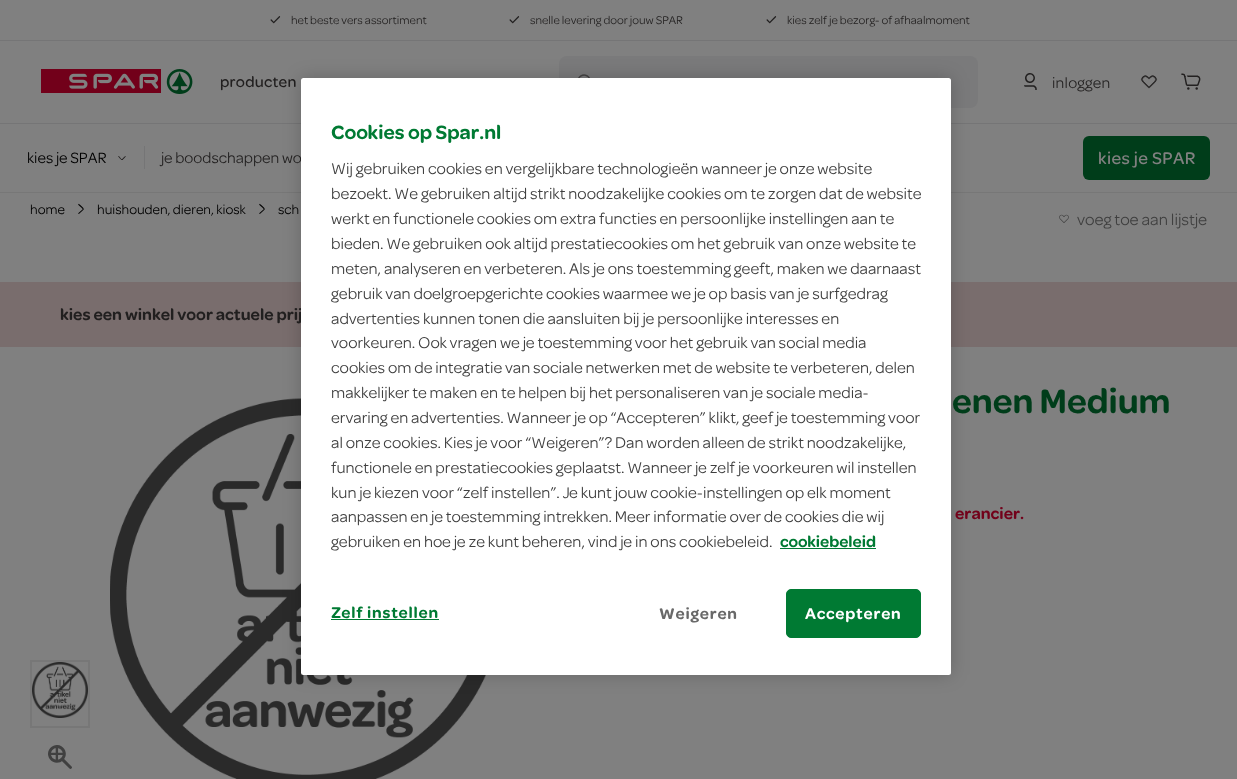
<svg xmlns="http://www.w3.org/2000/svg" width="1237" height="779">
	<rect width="100%" height="100%" fill="#808080" />
	<rect x="0" y="40" width="1237" height="1" fill="#757576" />
	<image x="270" y="16" width="11" height="8" href="assets/img1.png" />
	<text x="291" y="24" font-family="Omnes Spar" font-size="12" fill="#211F1F">het beste vers assortiment</text>
	<image x="509" y="16" width="11" height="8" href="assets/img1.png" />
	<text x="530" y="24" font-family="Omnes Spar" font-size="12" fill="#211F1F">snelle levering door jouw SPAR</text>
	<image x="766" y="16" width="11" height="8" href="assets/img1.png" />
	<text x="787" y="24" font-family="Omnes Spar" font-size="12" fill="#211F1F">kies zelf je bezorg- of afhaalmoment</text>
	<rect x="0" y="192" width="1237" height="1" fill="#777777" />
	<image x="41" y="69" width="152" height="25" href="assets/img2.png" />
	<text x="220" y="87" font-family="Omnes Spar" font-size="16" font-weight="500" letter-spacing="0.25" fill="#211F1F">producten</text>
	<rect x="559" y="56" width="419" height="52" rx="8" fill="#7A7A7B" />
	<image x="578" y="74" width="12" height="4" href="assets/img3.png" />
	<image x="1024" y="73" width="13" height="17" href="assets/img4.png" />
	<text x="1052" y="88" font-family="Omnes Spar" font-size="16" letter-spacing="0.25" fill="#211F1F">inloggen</text>
	<image x="1140" y="75" width="18" height="14" href="assets/img5.png" />
	<image x="1181" y="73" width="20" height="17" href="assets/img6.png" />
	<rect x="0" y="123" width="1237" height="1" fill="#757576" />
	<text x="27" y="163" font-family="Omnes Spar" font-size="16" fill="#000000">kies je SPAR</text>
	<image x="118" y="156" width="8" height="4" href="assets/img7.png" />
	<rect x="144" y="146" width="1" height="23" fill="#757576" />
	<text x="161" y="163" font-family="Omnes Spar" font-size="16" fill="#211F1F">je boodschappen wo</text>
	<rect x="1083" y="136" width="127" height="44" rx="6" fill="#003D1A" />
	<text x="1098" y="164" font-family="Omnes Spar" font-size="18" font-weight="500" letter-spacing="0.4" fill="#808080">kies je SPAR</text>
	<rect x="0" y="282" width="1237" height="65" fill="#796D6D" />
	<image x="110" y="398" width="393" height="381" href="assets/img12.png" />
	<rect x="301" y="78" width="650" height="597" rx="2.5" fill="#000000" fill-opacity="0.2" filter="blur(9px)" />
	<text x="60" y="320" font-family="Omnes Spar" font-size="17" font-weight="600" fill="#211F1F">kies een winkel voor actuele prij</text>
	<rect x="301" y="78" width="650" height="597" rx="2.5" fill="#FFFFFF" />
	<text x="331" y="139" font-family="Omnes Spar" font-size="20.5" font-weight="600" fill="#007A33">Cookies op Spar.nl</text>
	<g font-family="Omnes Spar" font-size="16.6" fill="#404040">
		<text x="331" y="174">Wij gebruiken cookies en vergelijkbare technologieën wanneer je onze website</text>
		<text x="331" y="199">bezoekt. We gebruiken altijd strikt noodzakelijke cookies om te zorgen dat de website</text>
		<text x="331" y="224">werkt en functionele cookies om extra functies en persoonlijke instellingen aan te</text>
		<text x="331" y="249">bieden. We gebruiken ook altijd prestatiecookies om het gebruik van onze website te</text>
		<text x="331" y="274">meten, analyseren en verbeteren. Als je ons toestemming geeft, maken we daarnaast</text>
		<text x="331" y="299">gebruik van doelgroepgerichte cookies waarmee we je op basis van je surfgedrag</text>
		<text x="331" y="324">advertenties kunnen tonen die aansluiten bij je persoonlijke interesses en</text>
		<text x="331" y="348">voorkeuren. Ook vragen we je toestemming voor het gebruik van social media</text>
		<text x="331" y="373">cookies om de integratie van sociale netwerken met de website te verbeteren, delen</text>
		<text x="331" y="398">makkelijker te maken en te helpen bij het personaliseren van je sociale media-</text>
		<text x="331" y="423">ervaring en advertenties. Wanneer je op “Accepteren” klikt, geef je toestemming voor</text>
		<text x="331" y="448">al onze cookies. Kies je voor “Weigeren”? Dan worden alleen de strikt noodzakelijke,</text>
		<text x="331" y="473">functionele en prestatiecookies geplaatst. Wanneer je zelf je voorkeuren wil instellen</text>
		<text x="331" y="498">kun je kiezen voor “zelf instellen”. Je kunt jouw cookie-instellingen op elk moment</text>
		<text x="331" y="522">aanpassen en je toestemming intrekken. Meer informatie over de cookies die wij</text>
		<text x="331" y="547">gebruiken en hoe je ze kunt beheren, vind je in ons cookiebeleid.</text>
	</g>
	<text x="780" y="547" font-family="Omnes Spar" font-size="16.6" font-weight="600" fill="#007A33">cookiebeleid</text>
	<rect x="780" y="548" width="96" height="1" fill="#007A33" />
	<text x="331" y="618" font-family="Omnes Spar" font-size="16.6" font-weight="600" letter-spacing="0.8" fill="#007A33">Zelf instellen</text>
	<rect x="331" y="619" width="108" height="1" fill="#007A33" />
	<text x="659" y="619" font-family="Omnes Spar" font-size="16.6" font-weight="600" letter-spacing="0.8" fill="#696969">Weigeren</text>
	<rect x="786.5" y="589.5" width="134" height="48" rx="4.5" fill="#007A33" stroke="#007A33" />
	<text x="805" y="619" font-family="Omnes Spar" font-size="16.6" font-weight="600" letter-spacing="0.8" fill="#FFFFFF">Accepteren</text>
	<text x="30" y="214" font-family="Omnes Spar" font-size="14" fill="#000000">home</text>
	<image x="78" y="203" width="6" height="11" href="assets/img8.png" />
	<text x="97" y="214" font-family="Omnes Spar" font-size="14" fill="#000000">huishouden, dieren, kiosk</text>
	<image x="259" y="203" width="6" height="11" href="assets/img8.png" />
	<text x="278" y="214" font-family="Omnes Spar" font-size="14" fill="#000000">sch</text>
	<image x="1059" y="214" width="10" height="9" href="assets/img9.png" />
	<text x="1077" y="225" font-family="Omnes Spar" font-size="17" fill="#404040">voeg toe aan lijstje</text>
	<rect x="31" y="661" width="58" height="66" fill="none" stroke="#777777" stroke-width="2" />
	<image x="32" y="662" width="56" height="56" href="assets/img10.png" />
	<image x="48" y="745" width="24" height="24" href="assets/img11.png" />
	<text x="952" y="413" font-family="Omnes Spar" font-size="36" font-weight="600" fill="#003D1A">enen Medium</text>
	<text x="955" y="519" font-family="Omnes Spar" font-size="17" font-weight="600" fill="#72011A">erancier.</text>
</svg>
